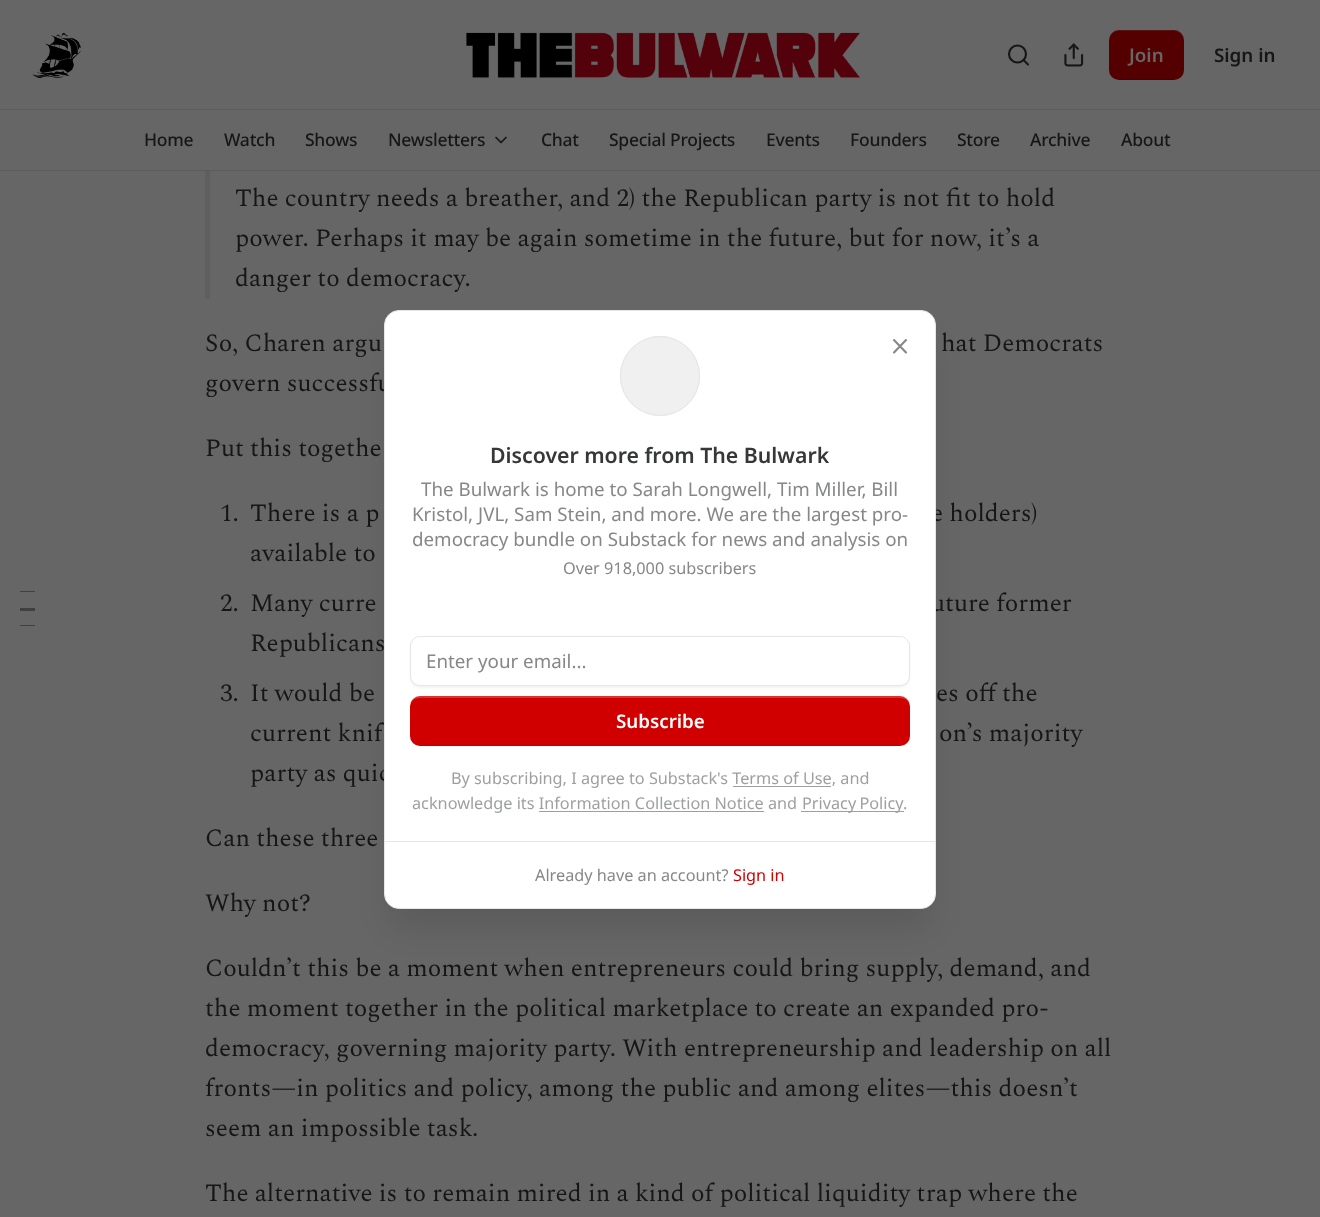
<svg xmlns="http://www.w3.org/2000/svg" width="1320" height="1217">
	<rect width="100%" height="100%" fill="#666666" />
	<image x="32" y="32" width="49" height="46" href="assets/img1.png" />
	<image x="466" y="32" width="394" height="46" href="assets/img2.png" />
	<circle cx="1017.5" cy="54" r="8.5" fill="none" stroke="#161616" stroke-width="2.1" />
	<path d="M1028 64.5L1023.5 60" fill="none" stroke="#161616" stroke-width="2.1" stroke-linecap="round" stroke-linejoin="round" />
	<image x="1064" y="43" width="20" height="24" href="assets/img3.png" />
	<rect x="1109" y="30" width="75" height="50" rx="10" fill="#540000" />
	<path d="M1109 69C1109 81 1119 80 1128 80H1165C1174 80 1184 81 1184 69C1184 74 1179 79 1174 79H1119C1113 79 1109 74 1109 69Z" fill="#000000" fill-opacity="0.1" />
	<path d="M1119 31H1174C1179 31 1184 36 1184 41C1184 29 1174 30 1165 30H1128C1119 30 1109 29 1109 41C1109 36 1113 31 1119 31Z" fill="#666666" fill-opacity="0.2" />
	<text x="1129" y="62" font-family="Noto Sans" font-size="18.75" font-weight="600" fill="#666666">Join</text>
	<text x="1214" y="62" font-family="Noto Sans" font-size="18.75" font-weight="600" fill="#161616">Sign in</text>
	<rect x="0" y="109" width="1320" height="1" fill="#5C5C5C" />
	<rect x="0" y="170" width="1320" height="1" fill="#5C5C5C" />
	<g font-family="Noto Sans" font-size="17.5" font-weight="500" letter-spacing="-0.25" fill="#161616">
		<text x="144" y="146">Home</text>
		<text x="224" y="146">Watch</text>
		<text x="305" y="146">Shows</text>
		<text x="388" y="146">Newsletters</text>
	</g>
	<path d="M496 137.5L501 142.5L506 137.5" fill="none" stroke="#161616" stroke-width="1.7" stroke-linecap="round" stroke-linejoin="round" />
	<g font-family="Noto Sans" font-size="17.5" font-weight="500" letter-spacing="-0.25" fill="#161616">
		<text x="541" y="146">Chat</text>
		<text x="609" y="146">Special Projects</text>
		<text x="766" y="146">Events</text>
		<text x="850" y="146">Founders</text>
		<text x="957" y="146">Store</text>
		<text x="1030" y="146">Archive</text>
		<text x="1121" y="146">About</text>
	</g>
	<rect x="20" y="591" width="15" height="1" fill="#3F4040" />
	<rect x="20" y="608" width="15" height="3" fill="#3F4040" />
	<rect x="20" y="625" width="15" height="1" fill="#3F4040" />
	<rect x="205" y="171" width="5" height="128" fill="#5F5F5F" />
	<g font-family="Spectral" font-size="25" fill="#161616">
		<text x="235" y="206">The country needs a breather, and 2) the Republican party is not fit to hold</text>
		<text x="235" y="246">power. Perhaps it may be again sometime in the future, but for now, it’s a</text>
		<text x="235" y="286">danger to democracy.</text>
		<text x="205" y="351">So, Charen argu</text>
		<text x="941" y="351">hat Democrats</text>
		<text x="205" y="391">govern successfu</text>
		<text x="205" y="456">Put this togethe</text>
		<text x="220" y="521">1.</text>
		<text x="250" y="521">There is a p</text>
		<text x="931" y="521">e holders)</text>
		<text x="250" y="561">available to</text>
		<text x="220" y="611">2.</text>
		<text x="250" y="611">Many curre</text>
		<text x="931" y="611">uture former</text>
		<text x="250" y="651">Republicans</text>
		<text x="220" y="701">3.</text>
		<text x="250" y="701">It would be</text>
		<text x="936" y="701">es off the</text>
		<text x="250" y="741">current knif</text>
		<text x="939" y="741">on’s majority</text>
		<text x="250" y="781">party as quic</text>
		<text x="205" y="846">Can these three</text>
		<text x="205" y="911">Why not?</text>
		<text x="205" y="976">Couldn’t this be a moment when entrepreneurs could bring supply, demand, and</text>
		<text x="205" y="1016">the moment together in the political marketplace to create an expanded pro-</text>
		<text x="205" y="1056">democracy, governing majority party. With entrepreneurship and leadership on all</text>
		<text x="205" y="1096">fronts—in politics and policy, among the public and among elites—this doesn’t</text>
		<text x="205" y="1136">seem an impossible task.</text>
		<text x="205" y="1201">The alternative is to remain mired in a kind of political liquidity trap where the</text>
	</g>
	<rect x="390" y="341" width="540" height="587" rx="9" fill="#000000" fill-opacity="0.1" filter="blur(15.5px)" />
	<rect x="384.5" y="310.5" width="551" height="598" rx="14.5" fill="#FFFFFF" stroke="#E6E6E6" />
	<circle cx="660" cy="376" r="39.5" fill="none" stroke="#E6E6E6" />
	<circle cx="660" cy="376" r="39.5" fill="#F0F0F0" stroke="#E6E6E6" />
	<path d="M906 340L894 352.5M894 340L906 352.5" fill="none" stroke="#868787" stroke-width="2.1" stroke-linecap="round" stroke-linejoin="round" />
	<text x="490" y="463" font-family="Noto Sans" font-size="21.25" font-weight="600" fill="#363737">Discover more from The Bulwark</text>
	<g font-family="Noto Sans" font-size="18.75" fill="#868787">
		<text x="421" y="496">The Bulwark is home to Sarah Longwell, Tim Miller, Bill</text>
		<text x="412" y="521">Kristol, JVL, Sam Stein, and more. We are the largest pro-</text>
		<text x="412" y="546">democracy bundle on Substack for news and analysis on</text>
	</g>
	<text x="563" y="574" font-family="Noto Sans" font-size="16.25" fill="#868787">Over 918,000 subscribers</text>
	<rect x="410" y="638" width="500" height="50" rx="10" fill="#000000" fill-opacity="0.05" filter="blur(1px)" />
	<rect x="410.5" y="636.5" width="499" height="49" rx="9.5" fill="#FFFFFF" stroke="#E6E6E6" />
	<text x="426" y="668" font-family="Noto Sans" font-size="18.75" fill="#868787">Enter your email...</text>
	<rect x="410" y="696" width="500" height="50" rx="10" fill="#D10000" />
	<path d="M410 735V736C410 742 414 746 420 746H900C906 746 910 742 910 736V735C910 741 906 745 900 745H420C414 745 410 741 410 735Z" fill="#000000" fill-opacity="0.1" />
	<path d="M420 698H900C906 698 910 702 910 708V706C910 700 906 696 900 696H420C414 696 410 700 410 706V708C410 702 414 698 420 698Z" fill="#FFFFFF" fill-opacity="0.2" />
	<text x="616" y="728" font-family="Noto Sans" font-size="18.75" font-weight="600" fill="#FFFFFF">Subscribe</text>
	<text x="451" y="784" font-family="Noto Sans" font-size="16.25" fill="#9E9F9F">By subscribing, I agree to Substack's Terms of Use, and</text>
	<rect x="733" y="786" width="98" height="1" fill="#9E9F9F" />
	<text x="412" y="809" font-family="Noto Sans" font-size="16.25" fill="#9E9F9F">acknowledge its Information Collection Notice and</text>
	<rect x="801" y="811" width="103" height="1" fill="#9E9F9F" />
	<g font-family="Noto Sans" font-size="16.25" fill="#9E9F9F">
		<text x="802" y="809" word-spacing="-1">Privacy Policy</text>
		<text x="903" y="809">.</text>
	</g>
	<rect x="539" y="811" width="225" height="1" fill="#9E9F9F" />
	<rect x="385" y="841" width="550" height="1" fill="#E6E6E6" />
	<text x="535" y="881" font-family="Noto Sans" font-size="16.25" fill="#868787">Already have an account?</text>
	<text x="733" y="881" font-family="Noto Sans" font-size="16.25" fill="#D10000">Sign in</text>
</svg>
